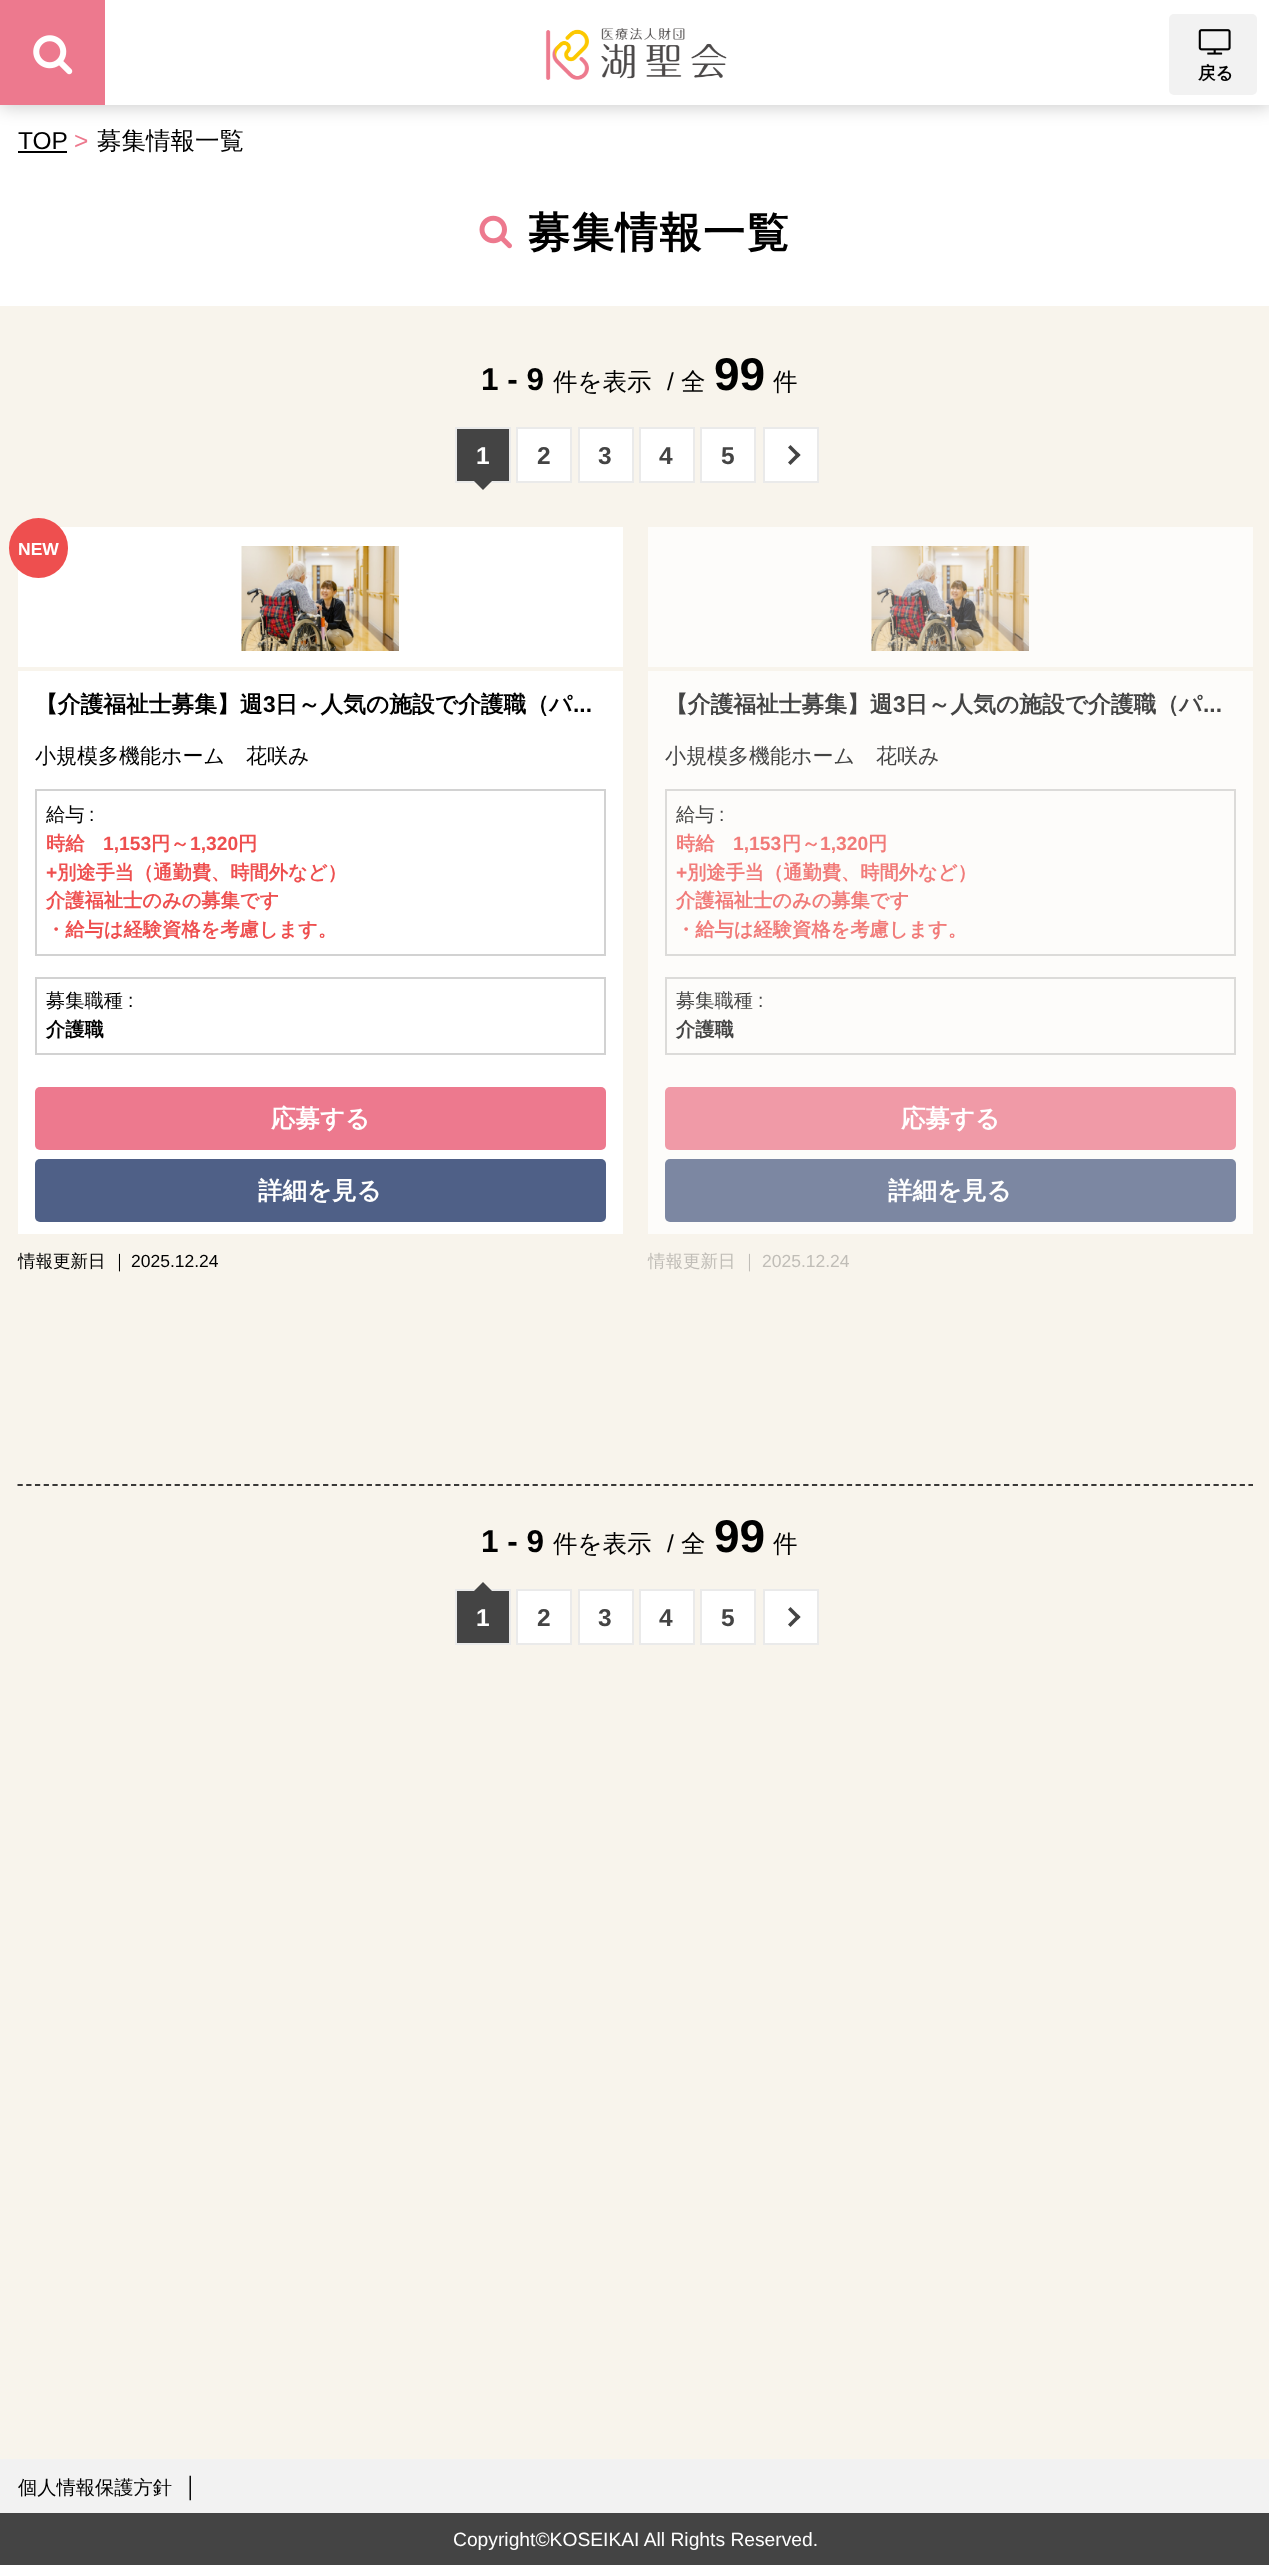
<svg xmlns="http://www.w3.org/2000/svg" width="1269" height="2565">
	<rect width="100%" height="100%" fill="#F8F4EC" />
	<rect x="0" y="105" width="1269" height="201" fill="#FFFFFF" />
	<rect x="0" y="2" width="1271" height="105" fill="#000000" fill-opacity="0.2" filter="blur(9px)" />
	<rect x="105" y="0" width="1164" height="105" fill="#FFFFFF" />
	<rect x="0" y="0" width="105" height="105" fill="#ED798E" />
	<image x="33" y="35" width="40" height="40" href="assets/img1.png" />
	<image x="545" y="28" width="182" height="52" href="assets/img2.png" />
	<rect x="1169" y="14" width="88" height="81" rx="5" fill="#F2F2F2" />
	<image x="1198" y="29" width="33" height="26" href="assets/img3.png" />
	<text x="1198" y="79" font-family="WenQuanYi Zen Hei" font-size="17.5" font-weight="700" fill="#000000">戻る</text>
	<text x="18" y="149" font-family="Liberation Sans" font-size="24.5" fill="#000000">TOP</text>
	<rect x="18" y="151" width="49" height="2" fill="#000000" />
	<text x="74" y="149" font-family="Liberation Sans" font-size="24.5" fill="#ED798E">&gt;</text>
	<text x="97" y="149" font-family="WenQuanYi Zen Hei" font-size="24.5" font-weight="500" fill="#000000">募集情報一覧</text>
	<image x="479" y="215" width="33" height="34" href="assets/img4.png" />
	<text x="528" y="247" font-family="WenQuanYi Zen Hei" font-size="42" font-weight="700" letter-spacing="1.75" fill="#000000">募集情報一覧</text>
	<text x="481" y="390" font-family="Liberation Sans" font-size="31.5" font-weight="700" fill="#000000">1 - 9</text>
	<text x="553" y="390" font-family="WenQuanYi Zen Hei" font-size="24.5" font-weight="500" fill="#000000">件を表示</text>
	<text x="667" y="390" font-family="Liberation Sans" font-size="24.5" fill="#000000">/</text>
	<text x="681" y="390" font-family="WenQuanYi Zen Hei" font-size="24.5" font-weight="500" fill="#000000">全</text>
	<text x="714" y="390" font-family="Liberation Sans" font-size="46" font-weight="700" fill="#000000">99</text>
	<text x="773" y="390" font-family="WenQuanYi Zen Hei" font-size="24.5" font-weight="500" fill="#000000">件</text>
	<rect x="456" y="428" width="54" height="54" fill="none" stroke="#EAEAEA" stroke-width="2" />
	<rect x="457" y="429" width="52" height="52" fill="#444444" />
	<text x="476" y="464" font-family="Liberation Sans" font-size="24.5" font-weight="700" fill="#FFFFFF">1</text>
	<path d="M474 481H492L483 490Z" fill="#444444" />
	<rect x="517" y="428" width="54" height="54" fill="#FFFFFF" stroke="#EAEAEA" stroke-width="2" />
	<text x="537" y="464" font-family="Liberation Sans" font-size="24.5" font-weight="700" fill="#444444">2</text>
	<rect x="579" y="428" width="54" height="54" fill="#FFFFFF" stroke="#EAEAEA" stroke-width="2" />
	<text x="598" y="464" font-family="Liberation Sans" font-size="24.5" font-weight="700" fill="#444444">3</text>
	<rect x="640" y="428" width="54" height="54" fill="#FFFFFF" stroke="#EAEAEA" stroke-width="2" />
	<text x="659" y="464" font-family="Liberation Sans" font-size="24.5" font-weight="700" fill="#444444">4</text>
	<rect x="701" y="428" width="54" height="54" fill="#FFFFFF" stroke="#EAEAEA" stroke-width="2" />
	<text x="721" y="464" font-family="Liberation Sans" font-size="24.5" font-weight="700" fill="#444444">5</text>
	<rect x="764" y="428" width="54" height="54" fill="#FFFFFF" stroke="#EAEAEA" stroke-width="2" />
	<path d="M790.5 445L800.5 455L798 457.5L788 447.5Z" fill="#444444" />
	<path d="M798 452.5L800.5 455L790.5 465L788 462.5Z" fill="#444444" />
	<rect x="18" y="527" width="605" height="707" fill="#FFFFFF" />
	<rect x="9" y="518" width="59" height="60" rx="29.5" fill="#EE4F4F" />
	<text x="18" y="555" font-family="Liberation Sans" font-size="17.5" font-weight="700" fill="#FFFFFF">NEW</text>
	<rect x="18" y="667" width="605" height="4" fill="#F8F4EC" />
	<image x="241" y="546" width="158" height="105" href="assets/img5.png" />
	<text x="35" y="712" font-family="WenQuanYi Zen Hei" font-size="22.75" font-weight="700" fill="#000000">【介護福祉士募集】週</text>
	<text x="263" y="712" font-family="Liberation Sans" font-size="22.75" font-weight="700" fill="#000000">3</text>
	<text x="275" y="712" font-family="WenQuanYi Zen Hei" font-size="22.75" font-weight="700" fill="#000000">日～人気の施設で介護職（パ</text>
	<text x="573" y="712" font-family="Liberation Sans" font-size="22.75" font-weight="700" fill="#000000">...</text>
	<text x="35" y="763" font-family="WenQuanYi Zen Hei" font-size="21" font-weight="500" fill="#000000">小規模多機能ホーム　花咲み</text>
	<rect x="36" y="790" width="569" height="165" fill="none" stroke="#D2D2D2" stroke-width="2" />
	<text x="46" y="821" font-family="WenQuanYi Zen Hei" font-size="19.25" font-weight="500" fill="#000000">給与</text>
	<text x="89" y="821" font-family="Liberation Sans" font-size="19.25" fill="#000000">:</text>
	<text x="46" y="850" font-family="WenQuanYi Zen Hei" font-size="19.25" font-weight="700" fill="#EE4F4F">時給</text>
	<text x="103" y="850" font-family="Liberation Sans" font-size="19.25" font-weight="700" fill="#EE4F4F">1,153</text>
	<text x="151" y="850" font-family="WenQuanYi Zen Hei" font-size="19.25" font-weight="700" fill="#EE4F4F">円～</text>
	<text x="190" y="850" font-family="Liberation Sans" font-size="19.25" font-weight="700" fill="#EE4F4F">1,320</text>
	<text x="238" y="850" font-family="WenQuanYi Zen Hei" font-size="19.25" font-weight="700" fill="#EE4F4F">円</text>
	<text x="46" y="879" font-family="Liberation Sans" font-size="19.25" font-weight="700" fill="#EE4F4F">+</text>
	<g font-family="WenQuanYi Zen Hei" font-size="19.25" font-weight="700" fill="#EE4F4F">
		<text x="57" y="879">別途手当（通勤費、時間外など）</text>
		<text x="46" y="907">介護福祉士のみの募集です</text>
		<text x="46" y="936">・給与は経験資格を考慮します。</text>
	</g>
	<rect x="36" y="978" width="569" height="76" fill="none" stroke="#D2D2D2" stroke-width="2" />
	<text x="46" y="1007" font-family="WenQuanYi Zen Hei" font-size="19.25" font-weight="500" fill="#000000">募集職種</text>
	<text x="128" y="1007" font-family="Liberation Sans" font-size="19.25" fill="#000000">:</text>
	<text x="46" y="1036" font-family="WenQuanYi Zen Hei" font-size="19.25" font-weight="700" fill="#000000">介護職</text>
	<rect x="35" y="1087" width="571" height="63" rx="5" fill="#ED798E" />
	<text x="271" y="1127" font-family="WenQuanYi Zen Hei" font-size="24.5" font-weight="700" fill="#FFFFFF">応募する</text>
	<rect x="35" y="1159" width="571" height="63" rx="5" fill="#4F6087" />
	<text x="258" y="1199" font-family="WenQuanYi Zen Hei" font-size="24.5" font-weight="700" fill="#FFFFFF">詳細を見る</text>
	<text x="18" y="1267" font-family="WenQuanYi Zen Hei" font-size="17.5" font-weight="500" fill="#000000">情報更新日 ｜</text>
	<text x="131" y="1267" font-family="Liberation Sans" font-size="17.5" fill="#000000">2025.12.24</text>
	<rect x="648" y="527" width="605" height="707" fill="#FDFCFA" />
	<rect x="648" y="667" width="605" height="4" fill="#F8F4EC" />
	<image x="871" y="546" width="158" height="105" href="assets/img6.png" />
	<text x="665" y="712" font-family="WenQuanYi Zen Hei" font-size="22.75" font-weight="700" fill="#444444">【介護福祉士募集】週</text>
	<text x="893" y="712" font-family="Liberation Sans" font-size="22.75" font-weight="700" fill="#444444">3</text>
	<text x="905" y="712" font-family="WenQuanYi Zen Hei" font-size="22.75" font-weight="700" fill="#444444">日～人気の施設で介護職（パ</text>
	<text x="1203" y="712" font-family="Liberation Sans" font-size="22.75" font-weight="700" fill="#444444">...</text>
	<text x="665" y="763" font-family="WenQuanYi Zen Hei" font-size="21" font-weight="500" fill="#444444">小規模多機能ホーム　花咲み</text>
	<rect x="666" y="790" width="569" height="165" fill="none" stroke="#DCDBD9" stroke-width="2" />
	<text x="676" y="821" font-family="WenQuanYi Zen Hei" font-size="19.25" font-weight="500" fill="#444444">給与</text>
	<text x="719" y="821" font-family="Liberation Sans" font-size="19.25" fill="#444444">:</text>
	<text x="676" y="850" font-family="WenQuanYi Zen Hei" font-size="19.25" font-weight="700" fill="#F17B79">時給</text>
	<text x="733" y="850" font-family="Liberation Sans" font-size="19.25" font-weight="700" fill="#F17B79">1,153</text>
	<text x="782" y="850" font-family="WenQuanYi Zen Hei" font-size="19.25" font-weight="700" fill="#F17B79">円～</text>
	<text x="820" y="850" font-family="Liberation Sans" font-size="19.25" font-weight="700" fill="#F17B79">1,320</text>
	<text x="868" y="850" font-family="WenQuanYi Zen Hei" font-size="19.25" font-weight="700" fill="#F17B79">円</text>
	<text x="676" y="879" font-family="Liberation Sans" font-size="19.25" font-weight="700" fill="#F17B79">+</text>
	<g font-family="WenQuanYi Zen Hei" font-size="19.25" font-weight="700" fill="#F17B79">
		<text x="687" y="879">別途手当（通勤費、時間外など）</text>
		<text x="676" y="907">介護福祉士のみの募集です</text>
		<text x="676" y="936">・給与は経験資格を考慮します。</text>
	</g>
	<rect x="666" y="978" width="569" height="76" fill="none" stroke="#DCDBD9" stroke-width="2" />
	<text x="676" y="1007" font-family="WenQuanYi Zen Hei" font-size="19.25" font-weight="500" fill="#444444">募集職種</text>
	<text x="758" y="1007" font-family="Liberation Sans" font-size="19.25" fill="#444444">:</text>
	<text x="676" y="1036" font-family="WenQuanYi Zen Hei" font-size="19.25" font-weight="700" fill="#444444">介護職</text>
	<rect x="665" y="1087" width="571" height="63" rx="5" fill="#F09AA7" />
	<text x="901" y="1127" font-family="WenQuanYi Zen Hei" font-size="24.5" font-weight="700" fill="#FFFFFF">応募する</text>
	<rect x="665" y="1159" width="571" height="63" rx="5" fill="#7C87A2" />
	<text x="888" y="1199" font-family="WenQuanYi Zen Hei" font-size="24.5" font-weight="700" fill="#FFFFFF">詳細を見る</text>
	<text x="648" y="1267" font-family="WenQuanYi Zen Hei" font-size="17.5" font-weight="500" fill="#C0BDB7">情報更新日 ｜</text>
	<text x="762" y="1267" font-family="Liberation Sans" font-size="17.5" fill="#C0BDB7">2025.12.24</text>
	<path d="M17.5 1485H1253" fill="none" stroke="#393837" stroke-width="1.8" stroke-dasharray="5.25 3.48" />
	<text x="481" y="1552" font-family="Liberation Sans" font-size="31.5" font-weight="700" fill="#000000">1 - 9</text>
	<text x="553" y="1552" font-family="WenQuanYi Zen Hei" font-size="24.5" font-weight="500" fill="#000000">件を表示</text>
	<text x="667" y="1552" font-family="Liberation Sans" font-size="24.5" fill="#000000">/</text>
	<text x="681" y="1552" font-family="WenQuanYi Zen Hei" font-size="24.5" font-weight="500" fill="#000000">全</text>
	<text x="714" y="1552" font-family="Liberation Sans" font-size="46" font-weight="700" fill="#000000">99</text>
	<text x="773" y="1552" font-family="WenQuanYi Zen Hei" font-size="24.5" font-weight="500" fill="#000000">件</text>
	<rect x="456" y="1590" width="54" height="54" fill="none" stroke="#EAEAEA" stroke-width="2" />
	<rect x="457" y="1591" width="52" height="52" fill="#444444" />
	<path d="M492 1591H474L483 1582Z" fill="#444444" />
	<text x="476" y="1626" font-family="Liberation Sans" font-size="24.5" font-weight="700" fill="#FFFFFF">1</text>
	<rect x="517" y="1590" width="54" height="54" fill="#FFFFFF" stroke="#EAEAEA" stroke-width="2" />
	<text x="537" y="1626" font-family="Liberation Sans" font-size="24.5" font-weight="700" fill="#444444">2</text>
	<rect x="579" y="1590" width="54" height="54" fill="#FFFFFF" stroke="#EAEAEA" stroke-width="2" />
	<text x="598" y="1626" font-family="Liberation Sans" font-size="24.5" font-weight="700" fill="#444444">3</text>
	<rect x="640" y="1590" width="54" height="54" fill="#FFFFFF" stroke="#EAEAEA" stroke-width="2" />
	<text x="659" y="1626" font-family="Liberation Sans" font-size="24.5" font-weight="700" fill="#444444">4</text>
	<rect x="701" y="1590" width="54" height="54" fill="#FFFFFF" stroke="#EAEAEA" stroke-width="2" />
	<text x="721" y="1626" font-family="Liberation Sans" font-size="24.5" font-weight="700" fill="#444444">5</text>
	<rect x="764" y="1590" width="54" height="54" fill="#FFFFFF" stroke="#EAEAEA" stroke-width="2" />
	<path d="M790.5 1607L800.5 1617L798 1619.5L788 1609.5Z" fill="#444444" />
	<path d="M798 1614.5L800.5 1617L790.5 1627L788 1624.5Z" fill="#444444" />
	<rect x="0" y="2459" width="1269" height="54" fill="#F2F2F2" />
	<text x="18" y="2494" font-family="WenQuanYi Zen Hei" font-size="19.25" font-weight="500" fill="#000000">個人情報保護方針</text>
	<text x="178" y="2494" font-family="WenQuanYi Zen Hei" font-size="24.5" font-weight="500" fill="#000000">｜</text>
	<rect x="0" y="2513" width="1269" height="52" fill="#444444" />
	<text x="453" y="2546" font-family="Liberation Sans" font-size="19.25" fill="#FFFFFF">Copyright©KOSEIKAI All Rights Reserved.</text>
</svg>
